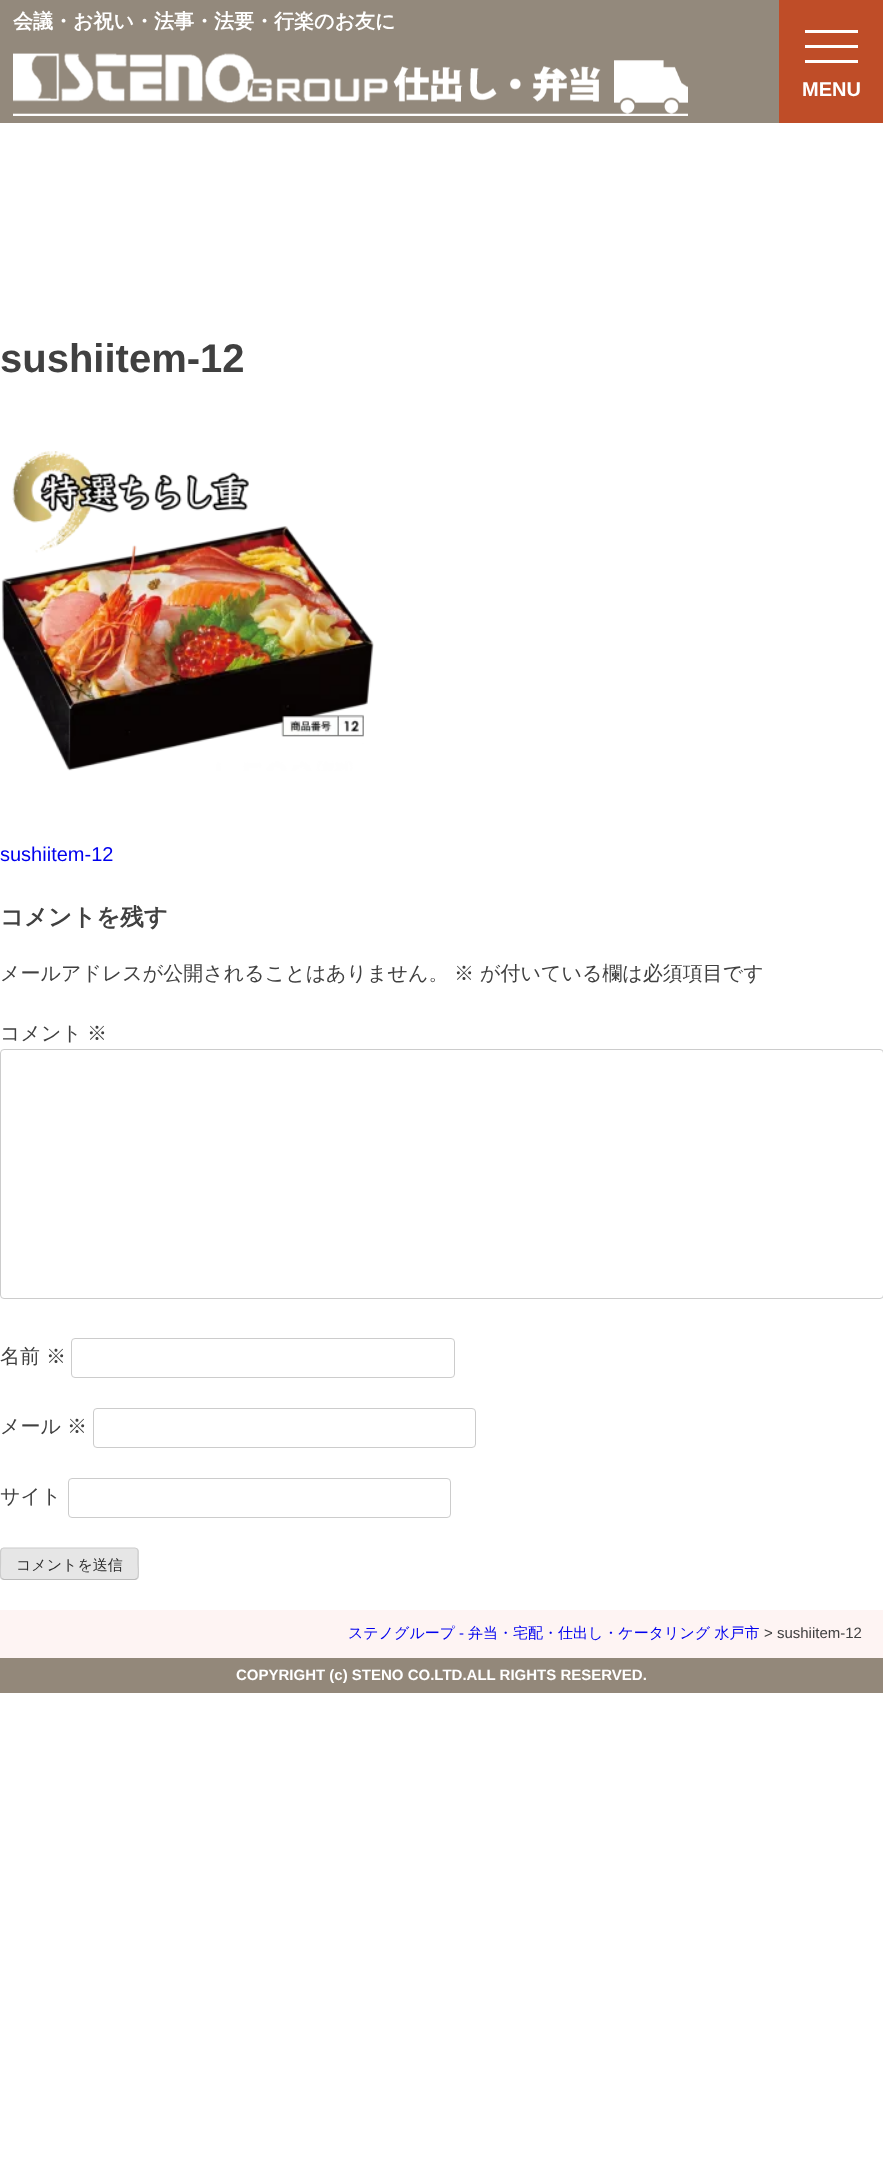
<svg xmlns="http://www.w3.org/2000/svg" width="883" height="2170">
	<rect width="100%" height="100%" fill="#FFFFFF" />
	<rect x="0" y="0" width="779" height="123" fill="#93897C" />
	<text x="13" y="28" font-family="WenQuanYi Zen Hei" font-size="20" font-weight="700" fill="#FFFFFF">会議・お祝い・法事・法要・行楽のお友に</text>
	<image x="13" y="53" width="675" height="63" href="assets/img1.png" />
	<rect x="779" y="0" width="104" height="123" fill="#BF4D28" />
	<rect x="805" y="30" width="53" height="3" fill="#FFFFFF" />
	<rect x="805" y="45" width="53" height="3" fill="#FFFFFF" />
	<rect x="805" y="60" width="53" height="3" fill="#FFFFFF" />
	<text x="802" y="96" font-family="Liberation Sans" font-size="20" font-weight="700" fill="#FFFFFF">MENU</text>
	<text x="0" y="372" font-family="Liberation Sans" font-size="40" font-weight="700" fill="#404040">sushiitem-12</text>
	<image x="1" y="451" width="373" height="320" href="assets/img2.png" />
	<text x="0" y="861" font-family="Liberation Sans" font-size="20" fill="#0000EE">sushiitem-12</text>
	<text x="0" y="925" font-family="WenQuanYi Zen Hei" font-size="23.5" font-weight="700" fill="#404040">コメントを残す</text>
	<g font-family="WenQuanYi Zen Hei" font-size="20" font-weight="500" fill="#404040">
		<text x="0" y="980">メールアドレスが公開されることはありません。</text>
		<text x="454" y="980">※</text>
		<text x="480" y="980">が付いている欄は必須項目です</text>
		<text x="0" y="1040">コメント</text>
		<text x="87" y="1040">※</text>
	</g>
	<rect x="0.5" y="1049.5" width="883" height="249" rx="3.5" fill="none" stroke="#CCCCCC" />
	<g font-family="WenQuanYi Zen Hei" font-size="20" font-weight="500" fill="#404040">
		<text x="0" y="1363">名前</text>
		<text x="46" y="1363">※</text>
	</g>
	<rect x="71.5" y="1338.5" width="383" height="39" rx="3.5" fill="none" stroke="#CCCCCC" />
	<g font-family="WenQuanYi Zen Hei" font-size="20" font-weight="500" fill="#404040">
		<text x="0" y="1433">メール</text>
		<text x="67" y="1433">※</text>
	</g>
	<rect x="93.5" y="1408.5" width="382" height="39" rx="3.5" fill="none" stroke="#CCCCCC" />
	<text x="0" y="1503" font-family="WenQuanYi Zen Hei" font-size="20" font-weight="500" fill="#404040">サイト</text>
	<rect x="68.5" y="1478.5" width="382" height="39" rx="3.5" fill="none" stroke="#CCCCCC" />
	<rect x="0" y="1548" width="139" height="32" rx="4" fill="#E6E6E6" />
	<path d="M137 1578.5L135 1579.5H4L1.5 1578.5" fill="none" stroke="#BBBBBB" stroke-width="1.2" />
	<path d="M1.5 1578.5C-.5 1576.5 .5 1566.5 .5 1564V1555.5C.5 1553 0 1548 3.5 1548H135C139 1548 138 1553 138 1555.5V1564C138 1566.5 139.5 1576.5 137 1578.5" fill="none" stroke="#CCCCCC" stroke-width="1.2" />
	<text x="16" y="1570" font-family="WenQuanYi Zen Hei" font-size="15" font-weight="500" fill="#2E2E2E">コメントを送信</text>
	<rect x="0" y="1610" width="883" height="48" fill="#FEF4F3" />
	<text x="348" y="1638" font-family="WenQuanYi Zen Hei" font-size="15" font-weight="500" fill="#0000EE">ステノグループ</text>
	<text x="459" y="1638" font-family="Liberation Sans" font-size="15" fill="#0000EE">-</text>
	<text x="468" y="1638" font-family="WenQuanYi Zen Hei" font-size="15" font-weight="500" fill="#0000EE">弁当・宅配・仕出し・ケータリング 水戸市</text>
	<text x="764" y="1638" font-family="Liberation Sans" font-size="15" fill="#404040">&gt; sushiitem-12</text>
	<rect x="0" y="1658" width="883" height="35" fill="#93887A" />
	<text x="236" y="1680" font-family="Liberation Sans" font-size="15" font-weight="700" fill="#FFFFFF">COPYRIGHT (c) STENO CO.LTD.ALL RIGHTS RESERVED.</text>
</svg>
